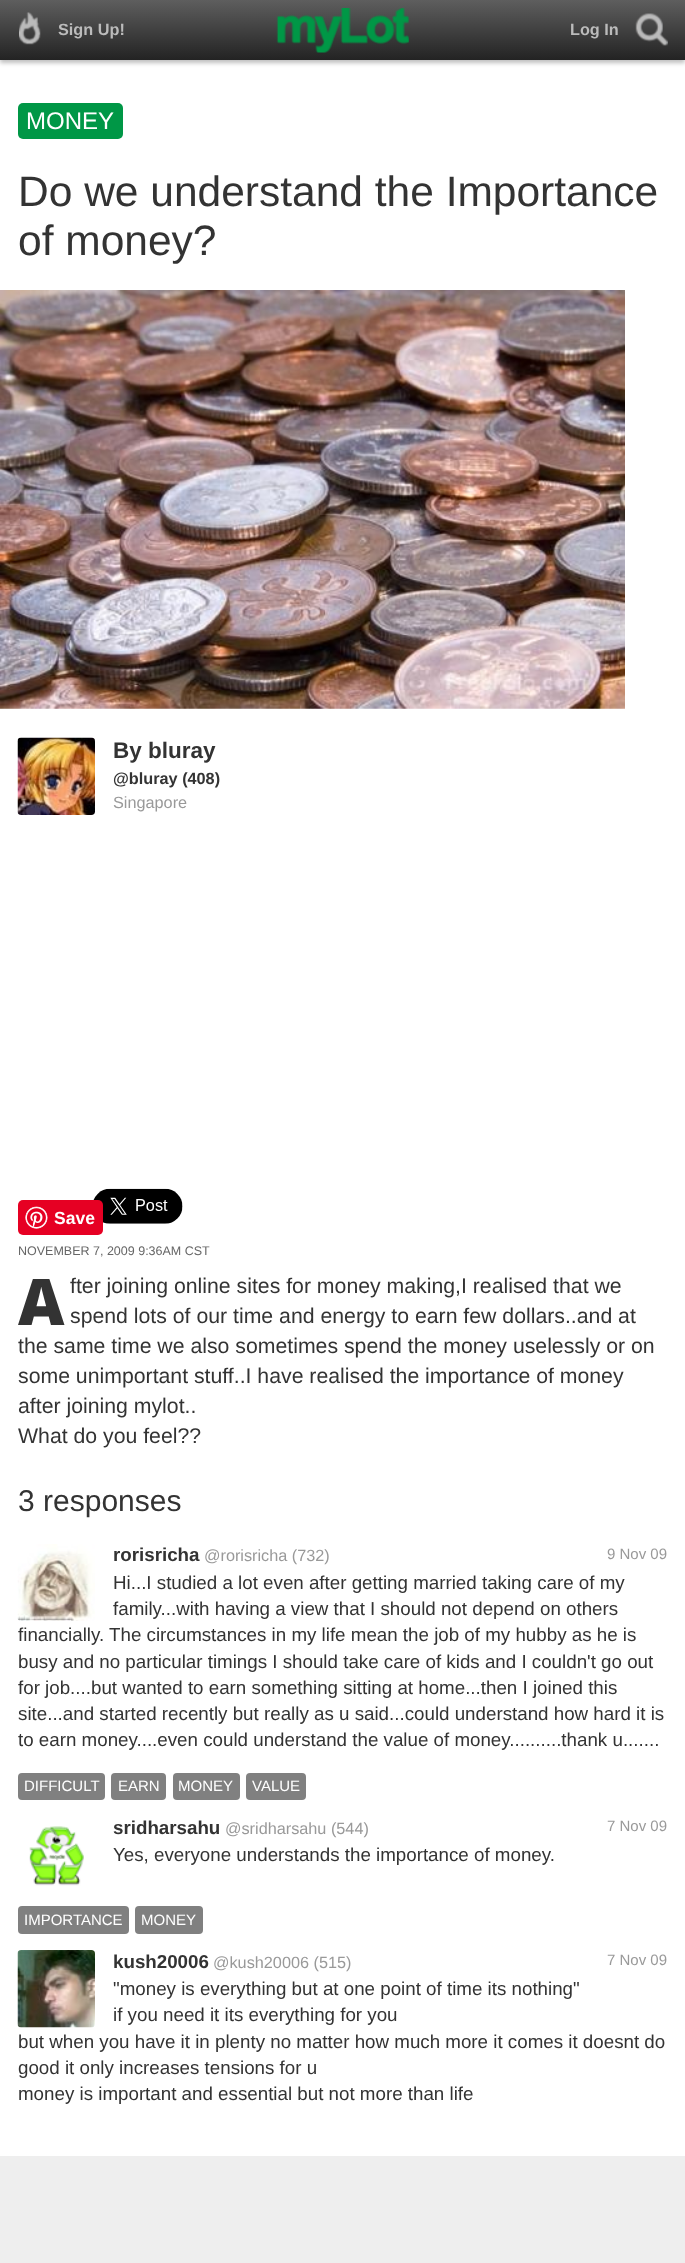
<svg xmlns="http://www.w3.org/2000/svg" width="685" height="2263">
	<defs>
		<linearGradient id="g1" gradientUnits="userSpaceOnUse" x1="343" y1="0" x2="343" y2="60"><stop offset="0" stop-color="#5E5E5E" /><stop offset="1" stop-color="#232323" /></linearGradient>
	</defs>
	<rect width="100%" height="100%" fill="#EEEEEE" />
	<rect x="0" y="60" width="685" height="2096" fill="#FFFFFF" />
	<rect x="0" y="3" width="685" height="60" fill="#000000" fill-opacity="0.25" filter="blur(2px)" />
	<rect x="0" y="0" width="685" height="60" fill="url(#g1)" />
	<image x="19" y="12" width="22" height="33" href="assets/img1.png" />
	<text x="58" y="35" font-family="Liberation Sans" font-size="16.25" font-weight="700" fill="#BBBBBB">Sign Up!</text>
	<image x="276" y="8" width="133" height="45" href="assets/img2.png" />
	<text x="570" y="35" font-family="Liberation Sans" font-size="16.25" font-weight="700" fill="#BBBBBB">Log In</text>
	<image x="635" y="13" width="33" height="33" href="assets/img3.png" />
	<rect x="18" y="103" width="105" height="36" rx="5" fill="#009746" />
	<text x="26" y="129" font-family="Liberation Sans" font-size="24" fill="#FFFFFF">MONEY</text>
	<g font-family="Liberation Sans" font-size="42.5" fill="#333333">
		<text x="18" y="206">Do we understand the Importance</text>
		<text x="18" y="255">of money?</text>
	</g>
	<image x="0" y="290" width="625" height="419" href="assets/img4.png" />
	<image x="17" y="737" width="78" height="78" href="assets/img5.png" />
	<text x="113" y="758" font-family="Liberation Sans" font-size="22.5" font-weight="700" fill="#333333">By bluray</text>
	<text x="113" y="784" font-family="Liberation Sans" font-size="16.25" font-weight="700" fill="#333333">@bluray (408)</text>
	<text x="113" y="808" font-family="Liberation Sans" font-size="16.25" fill="#999999">Singapore</text>
	<image x="93" y="1188" width="90" height="36" href="assets/img7.png" />
	<rect x="18" y="1200" width="85" height="35" rx="5" fill="#E60023" />
	<image x="25" y="1206" width="23" height="23" href="assets/img6.png" />
	<text x="54" y="1224" font-family="Liberation Sans" font-size="17.5" font-weight="700" fill="#FFFFFF">Save</text>
	<text x="18" y="1255" font-family="Liberation Sans" font-size="12.5" fill="#666666">NOVEMBER 7, 2009 9:36AM CST</text>
	<text x="18" y="1325" font-family="Noto Sans" font-size="64" font-weight="900" fill="#333333">A</text>
	<g font-family="Liberation Sans" font-size="21.25" fill="#333333">
		<text x="70" y="1293">fter joining online sites for money making,I realised that we</text>
		<text x="70" y="1323">spend lots of our time and energy to earn few dollars..and at</text>
		<text x="18" y="1353">the same time we also sometimes spend the money uselessly or on</text>
		<text x="18" y="1383">some unimportant stuff..I have realised the importance of money</text>
		<text x="18" y="1413">after joining mylot..</text>
		<text x="18" y="1443">What do you feel??</text>
	</g>
	<text x="18" y="1511" font-family="Liberation Sans" font-size="30" fill="#333333">3 responses</text>
	<image x="17" y="1544" width="78" height="77" href="assets/img8.png" />
	<text x="113" y="1561" font-family="Liberation Sans" font-size="18.75" font-weight="700" fill="#333333">rorisricha</text>
	<text x="204" y="1561" font-family="Liberation Sans" font-size="16.25" fill="#999999">@rorisricha (732)</text>
	<text x="607" y="1559" font-family="Liberation Sans" font-size="15" fill="#999999">9 Nov 09</text>
	<g font-family="Liberation Sans" font-size="18.75" fill="#333333">
		<text x="113" y="1589">Hi...I studied a lot even after getting married taking care of my</text>
		<text x="113" y="1615">family...with having a view that I should not depend on others</text>
		<text x="18" y="1641">financially. The circumstances in my life mean the job of my hubby as he is</text>
		<text x="18" y="1668">busy and no particular timings I should take care of kids and I couldn't go out</text>
		<text x="18" y="1694">for job....but wanted to earn something sitting at home...then I joined this</text>
		<text x="18" y="1720">site...and started recently but really as u said...could understand how hard it is</text>
		<text x="18" y="1746">to earn money....even could understand the value of money..........thank u.......</text>
	</g>
	<rect x="18" y="1773" width="87" height="27" rx="4" fill="#808080" />
	<text x="24" y="1791" font-family="Liberation Sans" font-size="15" fill="#FFFFFF">DIFFICULT</text>
	<rect x="111" y="1773" width="55" height="27" rx="4" fill="#808080" />
	<text x="118" y="1791" font-family="Liberation Sans" font-size="15" fill="#FFFFFF">EARN</text>
	<rect x="173" y="1773" width="67" height="27" rx="4" fill="#808080" />
	<text x="178" y="1791" font-family="Liberation Sans" font-size="15" fill="#FFFFFF">MONEY</text>
	<rect x="246" y="1773" width="60" height="27" rx="4" fill="#808080" />
	<text x="252" y="1791" font-family="Liberation Sans" font-size="15" fill="#FFFFFF">VALUE</text>
	<text x="113" y="1834" font-family="Liberation Sans" font-size="18.75" font-weight="700" fill="#333333">sridharsahu</text>
	<text x="225" y="1834" font-family="Liberation Sans" font-size="16.25" fill="#999999">@sridharsahu (544)</text>
	<text x="607" y="1831" font-family="Liberation Sans" font-size="15" fill="#999999">7 Nov 09</text>
	<text x="113" y="1861" font-family="Liberation Sans" font-size="18.75" fill="#333333">Yes, everyone understands the importance of money.</text>
	<rect x="18" y="1906" width="111" height="28" rx="4" fill="#808080" />
	<text x="24" y="1925" font-family="Liberation Sans" font-size="15" fill="#FFFFFF">IMPORTANCE</text>
	<rect x="135" y="1906" width="68" height="28" rx="4" fill="#808080" />
	<text x="141" y="1925" font-family="Liberation Sans" font-size="15" fill="#FFFFFF">MONEY</text>
	<image x="29" y="1826" width="55" height="60" href="assets/img9.png" />
	<image x="17" y="1950" width="78" height="78" href="assets/img10.png" />
	<text x="113" y="1968" font-family="Liberation Sans" font-size="18.75" font-weight="700" fill="#333333">kush20006</text>
	<text x="213" y="1968" font-family="Liberation Sans" font-size="16.25" fill="#999999">@kush20006 (515)</text>
	<text x="607" y="1965" font-family="Liberation Sans" font-size="15" fill="#999999">7 Nov 09</text>
	<g font-family="Liberation Sans" font-size="18.75" fill="#333333">
		<text x="113" y="1995">"money is everything but at one point of time its nothing"</text>
		<text x="113" y="2021">if you need it its everything for you</text>
		<text x="18" y="2048">but when you have it in plenty no matter how much more it comes it doesnt do</text>
		<text x="18" y="2074">good it only increases tensions for u</text>
		<text x="18" y="2100">money is important and essential but not more than life</text>
	</g>
</svg>
